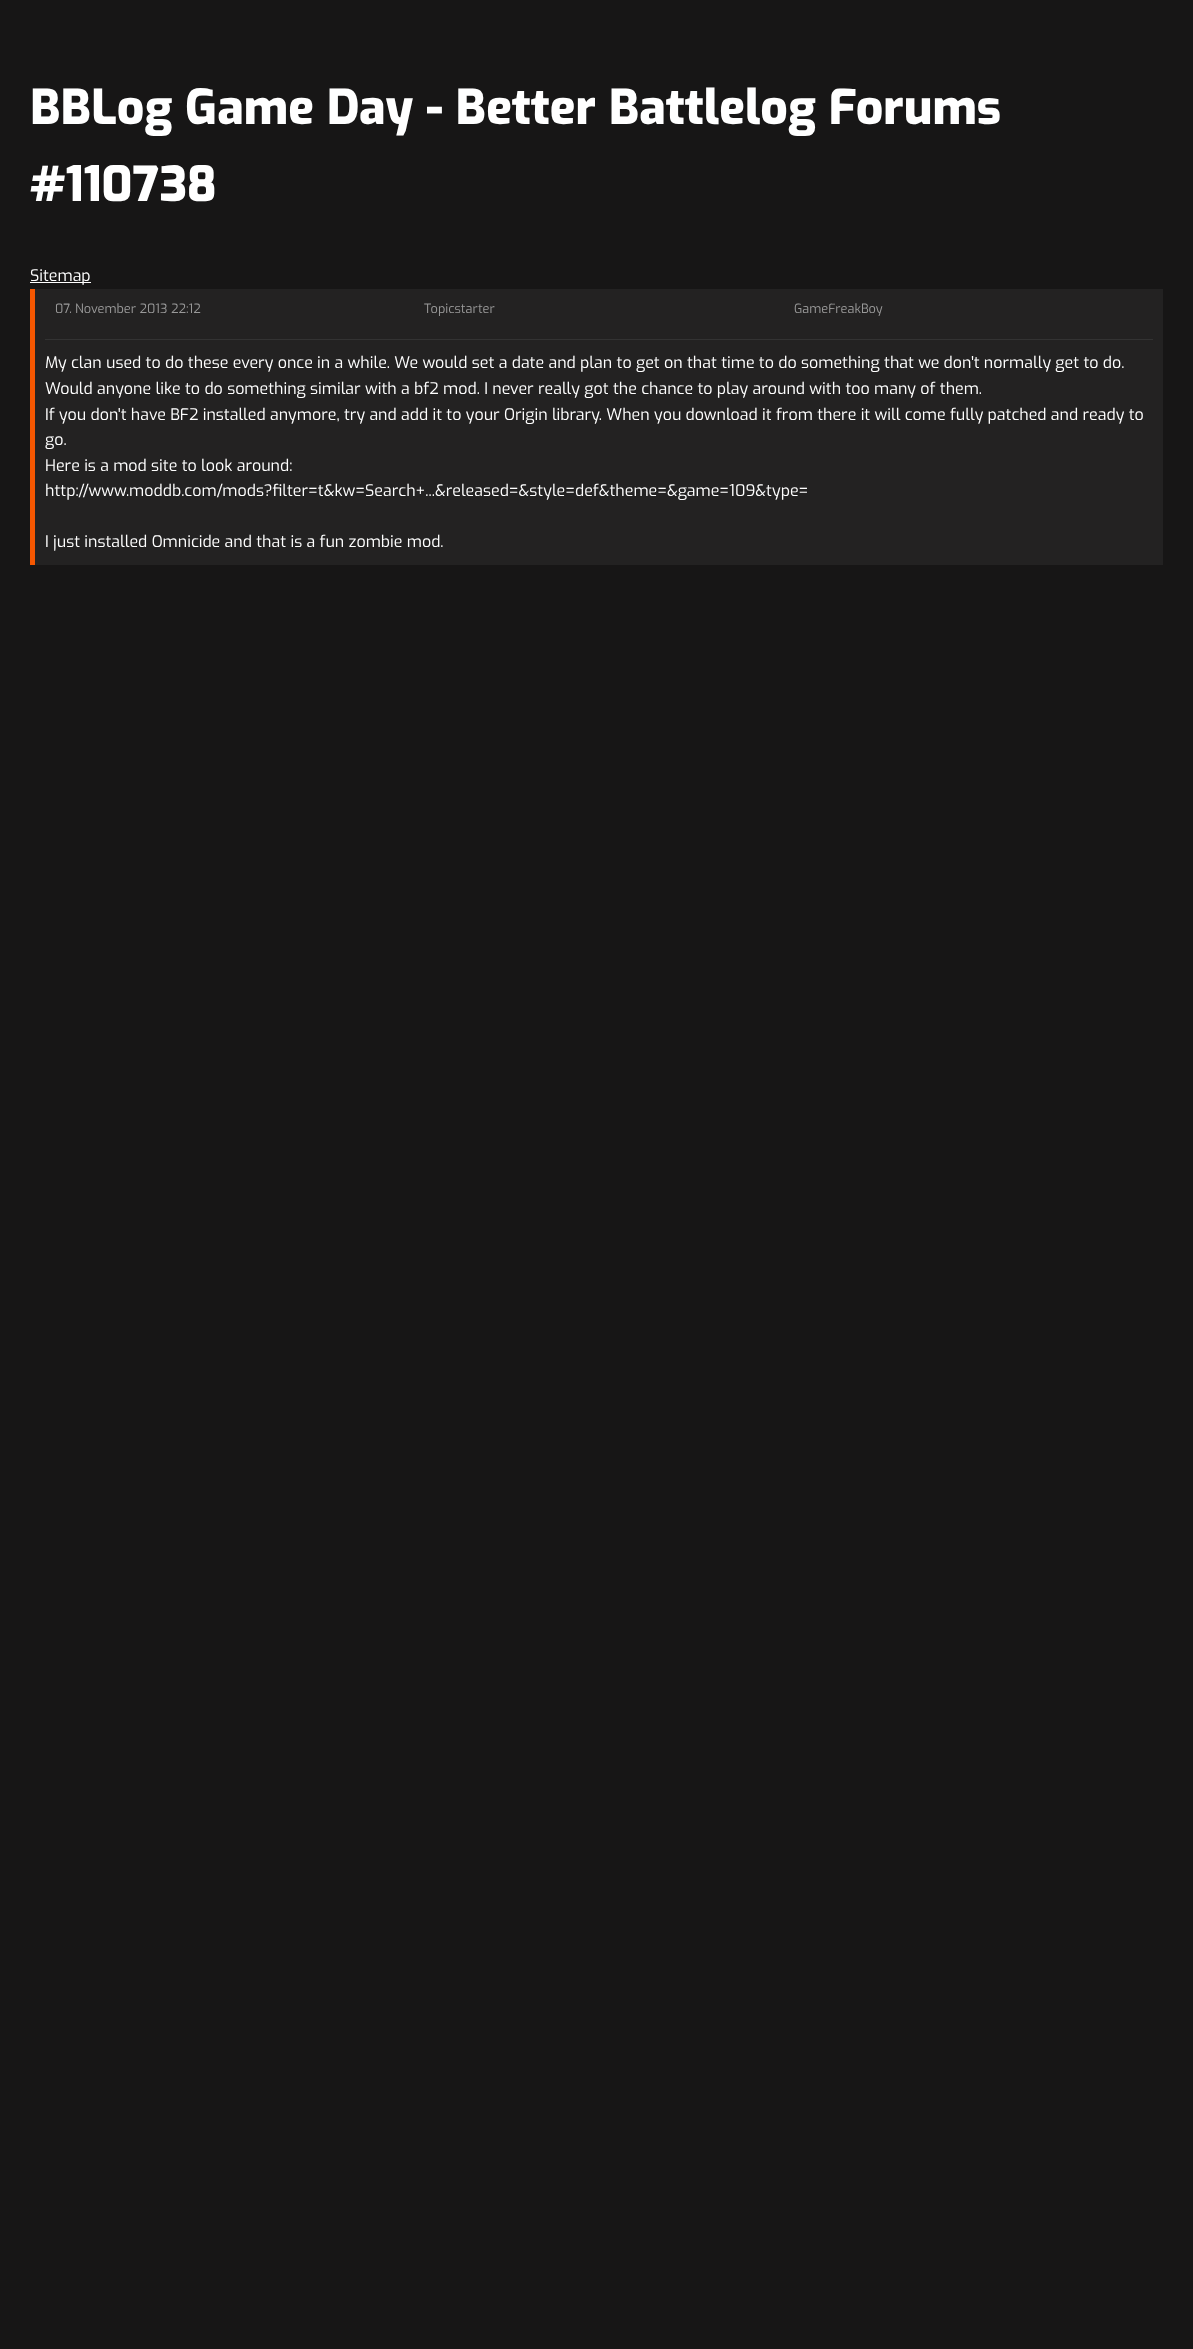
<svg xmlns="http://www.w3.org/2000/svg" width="1193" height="2349">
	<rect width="100%" height="100%" fill="#171616" />
	<g font-family="Exo" font-size="48" font-weight="800" fill="#FFFFFF">
		<text x="30" y="124" word-spacing="0.5">BBLog Game Day - Better Battlelog Forums</text>
		<text x="30" y="201">#110738</text>
	</g>
	<rect x="30" y="282" width="61" height="1" fill="#FFFFFF" />
	<text x="30" y="281" font-family="Exo" font-size="16" fill="#FFFFFF">Sitemap</text>
	<rect x="35" y="289" width="1128" height="276" fill="#232222" />
	<rect x="30" y="289" width="5" height="276" fill="#F55701" />
	<rect x="45" y="339" width="1108" height="1" fill="#333333" />
	<g font-family="Exo" font-size="12.75" fill="#999999">
		<text x="55" y="313">07. November 2013 22:12</text>
		<text x="424" y="313">Topicstarter</text>
		<text x="794" y="313">GameFreakBoy</text>
	</g>
	<g font-family="Exo" font-size="16" fill="#FFFFFF">
		<text x="45" y="368">My clan used to do these every once in a while. We would set a date and plan to get on that time to do something that we don't normally get to do.</text>
		<text x="45" y="394">Would anyone like to do something similar with a bf2 mod. I never really got the chance to play around with too many of them.</text>
		<text x="45" y="420">If you don't have BF2 installed anymore, try and add it to your Origin library. When you download it from there it will come fully patched and ready to</text>
		<text x="45" y="445">go.</text>
		<text x="45" y="471">Here is a mod site to look around:</text>
		<text x="45" y="496">http://www.moddb.com/mods?filter=t&amp;kw=Search+...&amp;released=&amp;style=def&amp;theme=&amp;game=109&amp;type=</text>
		<text x="45" y="547">I just installed Omnicide and that is a fun zombie mod.</text>
	</g>
</svg>
